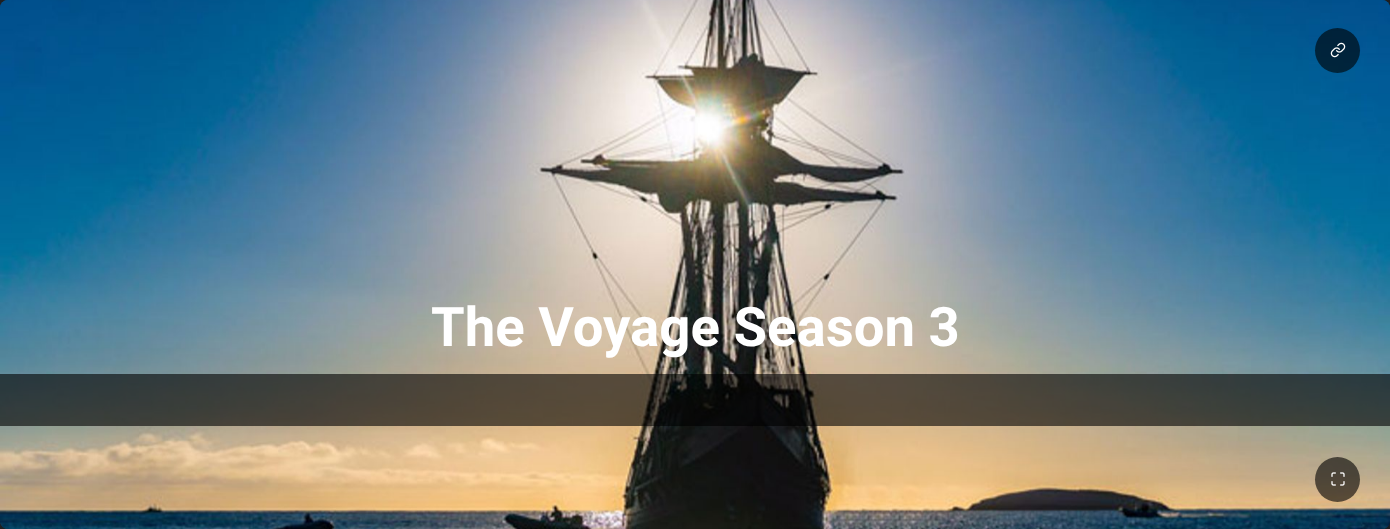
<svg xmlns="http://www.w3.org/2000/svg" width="1390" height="529">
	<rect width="100%" height="100%" fill="#1E1F21" />
	<image x="0" y="0" width="1390" height="529" href="assets/img1.png" />
	<image x="0" y="0" width="1390" height="529" href="assets/img2.png" />
	<text x="431" y="346" font-family="Roboto" font-size="54.5" font-weight="700" fill="#FFFFFF">The Voyage Season 3</text>
	<rect x="0" y="374" width="1390" height="52" fill="#000000" fill-opacity="0.6" />
	<circle cx="1337.5" cy="50.5" r="22.5" fill="#000000" fill-opacity="0.6" />
	<image x="1330" y="42" width="16" height="16" href="assets/img3.png" />
	<circle cx="1337.5" cy="479.5" r="22.5" fill="#000000" fill-opacity="0.6" />
	<image x="1331" y="472" width="14" height="14" href="assets/img4.png" />
</svg>
